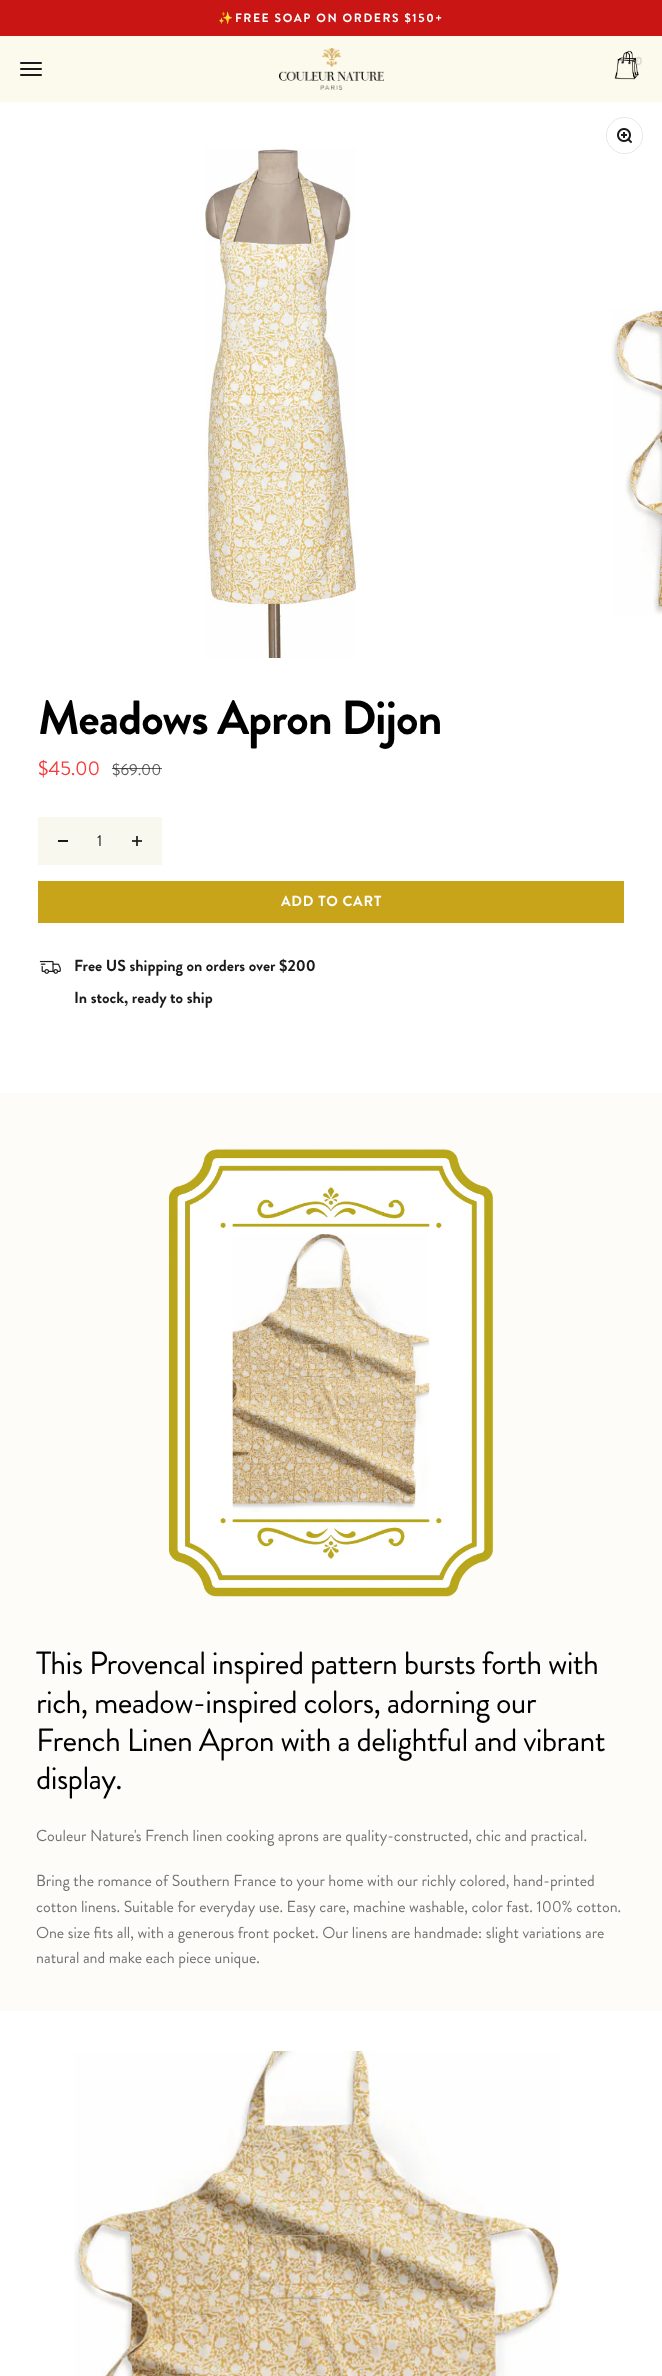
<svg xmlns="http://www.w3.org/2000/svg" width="662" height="2376">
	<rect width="100%" height="100%" fill="#FFFFFF" />
	<rect x="0" y="0" width="662" height="36" fill="#CA1515" />
	<text x="218" y="22" font-family="Noto Color Emoji" font-size="12" font-weight="700" letter-spacing="1.6" fill="#FFFFFF">✨</text>
	<text x="235" y="22" font-family="Brandon Grotesque" font-size="12" font-weight="700" letter-spacing="1.6" fill="#FFFFFF">FREE SOAP ON ORDERS $150+</text>
	<rect x="0" y="36" width="662" height="66" fill="#FCFAED" />
	<image x="279" y="48" width="105" height="42" href="assets/img1.png" />
	<image x="614" y="50" width="25" height="30" href="assets/img2.png" />
	<text x="635" y="65" font-family="Brandon Grotesque" font-size="12" font-weight="700" fill="#DBD9CE">0</text>
	<image x="20" y="62" width="22" height="14" href="assets/img3.png" />
	<circle cx="624.5" cy="135.5" r="18" fill="none" stroke="#E4E4E4" />
	<circle cx="624.5" cy="135.5" r="17.5" fill="#FFFFFF" />
	<image x="617" y="128" width="15" height="15" href="assets/img4.png" />
	<image x="205" y="147" width="152" height="511" href="assets/img5.png" />
	<image x="611" y="308" width="51" height="307" href="assets/img6.png" />
	<text x="38" y="734" font-family="Brandon Grotesque" font-size="48" font-weight="700" letter-spacing="-1" fill="#000000">Meadows Apron Dijon</text>
	<text x="38" y="775" font-family="Brandon Grotesque" font-size="20" fill="#F83A3A">$45.00</text>
	<text x="112" y="775" font-family="Brandon Grotesque" font-size="16" fill="#5F5F5F">$69.00</text>
	<rect x="112" y="768" width="50" height="1" fill="#1A1A1A" fill-opacity="0.7" />
	<rect x="38" y="817" width="124" height="48" fill="#F9F8EF" />
	<rect x="132" y="840" width="10" height="2" fill="#3B3B3A" />
	<rect x="58" y="840" width="10" height="2" fill="#1A1A1A" />
	<text x="97" y="846" font-family="Brandon Grotesque" font-size="16" fill="#1A1A1A">1</text>
	<rect x="136" y="836" width="2" height="10" fill="#3B3B3A" />
	<rect x="136" y="840" width="2" height="2" fill="#1F1F1F" />
	<rect x="38" y="881" width="586" height="42" fill="#C8A41B" />
	<text x="281" y="906" font-family="Brandon Grotesque" font-size="14.5" font-weight="700" letter-spacing="0.75" fill="#FFFFFF">ADD TO CART</text>
	<image x="39" y="960" width="22" height="14" href="assets/img7.png" />
	<g font-family="Brandon Grotesque" font-size="16" font-weight="700" fill="#1A1A1A">
		<text x="74" y="971">Free US shipping on orders over $200</text>
		<text x="74" y="1003">In stock, ready to ship</text>
	</g>
	<rect x="0" y="1093" width="662" height="918" fill="#FDFCF9" />
	<image x="232" y="1234" width="198" height="278" href="assets/img9.png" />
	<image x="168" y="1148" width="326" height="449" href="assets/img8.png" />
	<g font-family="Brandon Grotesque" font-size="32" letter-spacing="-0.65" fill="#000000">
		<text x="36" y="1674">This Provencal inspired pattern bursts forth with</text>
		<text x="36" y="1713">rich, meadow-inspired colors, adorning our</text>
		<text x="36" y="1751">French Linen Apron with a delightful and vibrant</text>
		<text x="36" y="1789">display.</text>
	</g>
	<g font-family="Brandon Grotesque" font-size="16" fill="#727272">
		<text x="36" y="1841">Couleur Nature's French linen cooking aprons are quality-constructed, chic and practical.</text>
		<text x="36" y="1886">Bring the romance of Southern France to your home with our richly colored, hand-printed</text>
		<text x="36" y="1912">cotton linens. Suitable for everyday use. Easy care, machine washable, color fast. 100% cotton.</text>
		<text x="36" y="1938">One size fits all, with a generous front pocket. Our linens are handmade: slight variations are</text>
		<text x="36" y="1963">natural and make each piece unique.</text>
	</g>
	<image x="74" y="2051" width="486" height="325" href="assets/img10.png" />
</svg>
